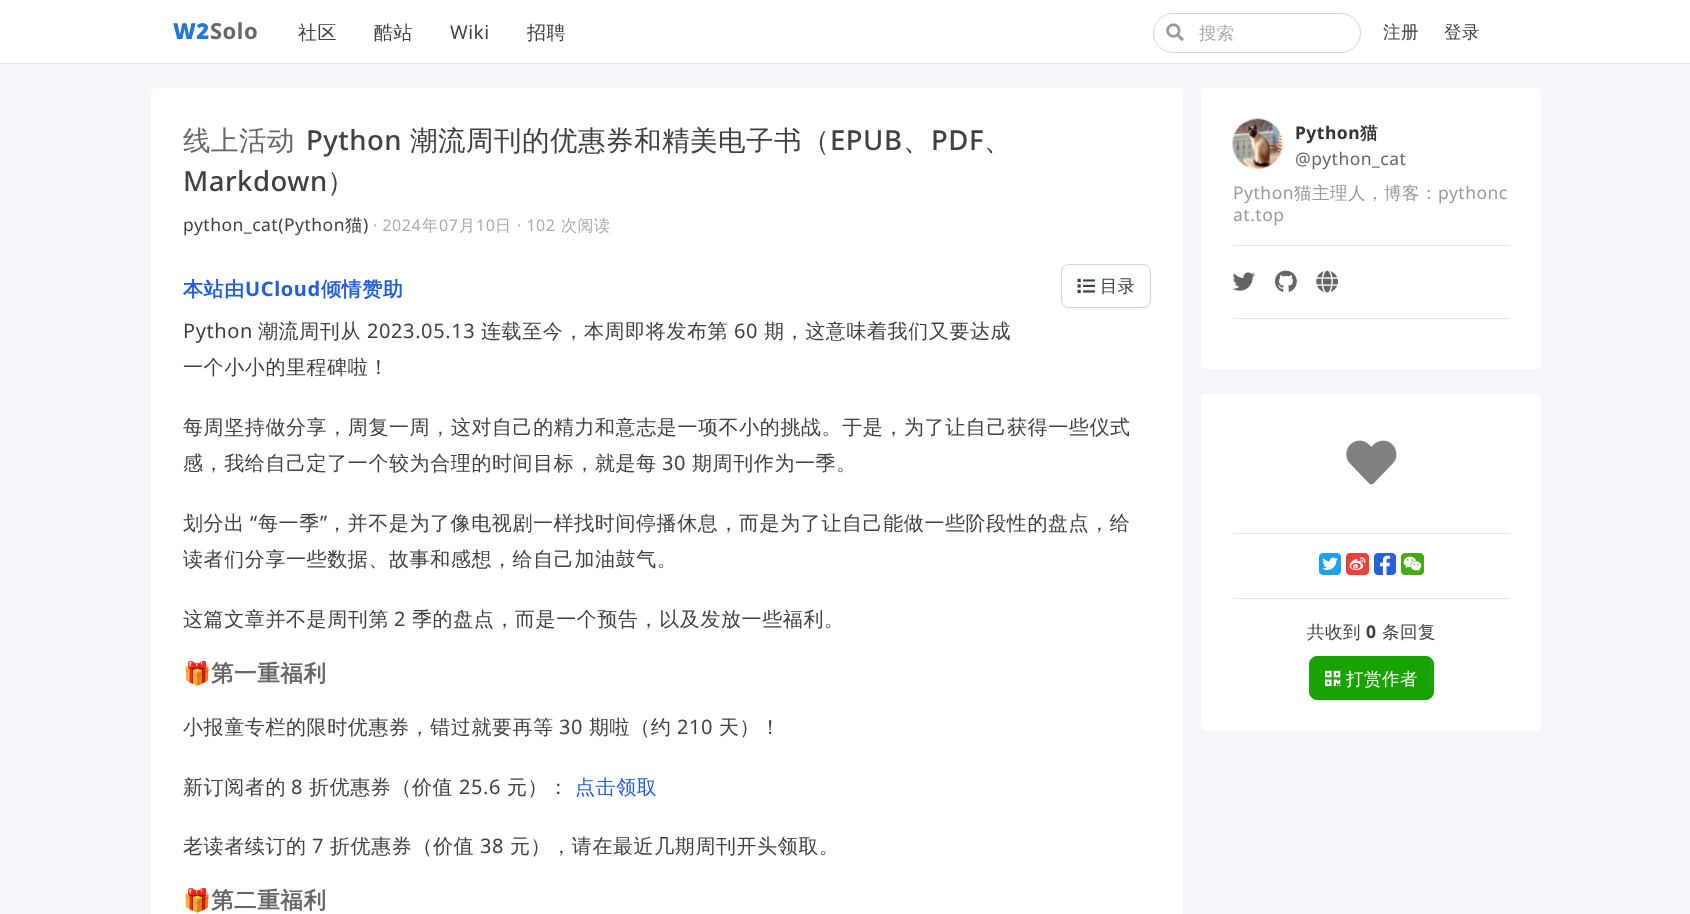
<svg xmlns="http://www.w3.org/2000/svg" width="1690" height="914">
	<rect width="100%" height="100%" fill="#F5F6F9" />
	<rect x="0" y="1" width="1690" height="63" fill="#000000" fill-opacity="0.06" filter="blur(0.5px)" />
	<rect x="0" y="0" width="1690" height="63" fill="#FFFFFF" />
	<text x="173" y="39" font-family="Noto Sans" font-size="22" font-weight="900" letter-spacing="0.5" fill="#2275DA">W2</text>
	<text x="210" y="39" font-family="Noto Sans" font-size="22" font-weight="700" letter-spacing="0.5" fill="#666666">Solo</text>
	<g font-family="WenQuanYi Zen Hei" font-size="19" font-weight="500" letter-spacing="0.5" fill="#404040">
		<text x="298" y="39">社区</text>
		<text x="374" y="39">酷站</text>
	</g>
	<text x="450" y="39" font-family="Noto Sans" font-size="19" letter-spacing="0.5" fill="#404040">Wiki</text>
	<text x="527" y="39" font-family="WenQuanYi Zen Hei" font-size="19" font-weight="500" letter-spacing="0.5" fill="#404040">招聘</text>
	<rect x="1153.5" y="13.5" width="207" height="39" rx="19.5" fill="none" stroke="#D1D5DB" />
	<image x="1166" y="23" width="18" height="18" href="assets/img1.png" />
	<text x="1199" y="39" font-family="WenQuanYi Zen Hei" font-size="17.5" font-weight="500" fill="#ADAAA8">搜索</text>
	<g font-family="WenQuanYi Zen Hei" font-size="17.5" font-weight="500" letter-spacing="0.5" fill="#404040">
		<text x="1383" y="38">注册</text>
		<text x="1444" y="38">登录</text>
	</g>
	<rect x="151" y="88" width="1032" height="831" rx="5" fill="#FFFFFF" />
	<text x="183" y="150" font-family="WenQuanYi Zen Hei" font-size="27.5" font-weight="500" letter-spacing="0.5" fill="#666666">线上活动</text>
	<text x="306" y="150" font-family="Noto Sans" font-size="27.5" font-weight="500" letter-spacing="0.5" fill="#404040">Python</text>
	<text x="410" y="150" font-family="WenQuanYi Zen Hei" font-size="27.5" font-weight="500" letter-spacing="0.5" fill="#404040">潮流周刊的优惠券和精美电子书（</text>
	<text x="830" y="150" font-family="Noto Sans" font-size="27.5" font-weight="500" letter-spacing="0.5" fill="#404040">EPUB</text>
	<text x="903" y="150" font-family="WenQuanYi Zen Hei" font-size="27.5" font-weight="500" letter-spacing="0.5" fill="#404040">、</text>
	<text x="931" y="150" font-family="Noto Sans" font-size="27.5" font-weight="500" letter-spacing="0.5" fill="#404040">PDF</text>
	<text x="984" y="150" font-family="WenQuanYi Zen Hei" font-size="27.5" font-weight="500" letter-spacing="0.5" fill="#404040">、</text>
	<text x="183" y="191" font-family="Noto Sans" font-size="27.5" font-weight="500" letter-spacing="0.5" fill="#404040">Markdown</text>
	<text x="327" y="191" font-family="WenQuanYi Zen Hei" font-size="27.5" font-weight="500" letter-spacing="0.5" fill="#404040">）</text>
	<text x="183" y="231" font-family="Noto Sans" font-size="17.5" letter-spacing="0.5" fill="#404040">python_cat(Python</text>
	<text x="345" y="231" font-family="WenQuanYi Zen Hei" font-size="17.5" font-weight="500" letter-spacing="0.5" fill="#404040">猫</text>
	<text x="363" y="231" font-family="Noto Sans" font-size="17.5" letter-spacing="0.5" fill="#404040">)</text>
	<text x="373" y="231" font-family="Noto Sans" font-size="16" letter-spacing="0.5" fill="#ADAAA8">· 2024</text>
	<text x="422" y="231" font-family="WenQuanYi Zen Hei" font-size="16" font-weight="500" letter-spacing="0.5" fill="#ADAAA8">年</text>
	<text x="439" y="231" font-family="Noto Sans" font-size="16" letter-spacing="0.5" fill="#ADAAA8">07</text>
	<text x="459" y="231" font-family="WenQuanYi Zen Hei" font-size="16" font-weight="500" letter-spacing="0.5" fill="#ADAAA8">月</text>
	<text x="476" y="231" font-family="Noto Sans" font-size="16" letter-spacing="0.5" fill="#ADAAA8">10</text>
	<text x="495" y="231" font-family="WenQuanYi Zen Hei" font-size="16" font-weight="500" letter-spacing="0.5" fill="#ADAAA8">日</text>
	<text x="517" y="231" font-family="Noto Sans" font-size="16" letter-spacing="0.5" fill="#ADAAA8">· 102</text>
	<text x="561" y="231" font-family="WenQuanYi Zen Hei" font-size="16" font-weight="500" letter-spacing="0.5" fill="#ADAAA8">次阅读</text>
	<text x="183" y="296" font-family="WenQuanYi Zen Hei" font-size="20" font-weight="700" letter-spacing="0.6" fill="#225EDA">本站由</text>
	<text x="245" y="296" font-family="Noto Sans" font-size="20" font-weight="700" letter-spacing="0.6" fill="#225EDA">UCloud</text>
	<text x="321" y="296" font-family="WenQuanYi Zen Hei" font-size="20" font-weight="700" letter-spacing="0.6" fill="#225EDA">倾情赞助</text>
	<rect x="1061" y="265" width="90" height="44" rx="8" fill="#000000" fill-opacity="0.05" filter="blur(1px)" />
	<rect x="1061.5" y="264.5" width="89" height="43" rx="7.5" fill="#FFFFFF" stroke="#D1D5DB" />
	<image x="1077" y="278" width="18" height="16" href="assets/img2.png" />
	<text x="1100" y="292" font-family="WenQuanYi Zen Hei" font-size="17.5" font-weight="500" fill="#374151">目录</text>
	<text x="183" y="338" font-family="Noto Sans" font-size="20" letter-spacing="0.6" fill="#404040">Python</text>
	<text x="258" y="338" font-family="WenQuanYi Zen Hei" font-size="20" font-weight="500" letter-spacing="0.6" fill="#404040">潮流周刊从</text>
	<text x="367" y="338" font-family="Noto Sans" font-size="20" letter-spacing="0.6" fill="#404040">2023.05.13</text>
	<text x="481" y="338" font-family="WenQuanYi Zen Hei" font-size="20" font-weight="500" letter-spacing="0.6" fill="#404040">连载至今，本周即将发布第</text>
	<text x="734" y="338" font-family="Noto Sans" font-size="20" letter-spacing="0.6" fill="#404040">60</text>
	<g font-family="WenQuanYi Zen Hei" font-size="20" font-weight="500" letter-spacing="0.6" fill="#404040">
		<text x="764" y="338">期，这意味着我们又要达成</text>
		<text x="183" y="374">一个小小的里程碑啦！</text>
		<text x="183" y="434">每周坚持做分享，周复一周，这对自己的精力和意志是一项不小的挑战。于是，为了让自己获得一些仪式</text>
		<text x="183" y="470">感，我给自己定了一个较为合理的时间目标，就是每</text>
	</g>
	<text x="662" y="470" font-family="Noto Sans" font-size="20" letter-spacing="0.6" fill="#404040">30</text>
	<g font-family="WenQuanYi Zen Hei" font-size="20" font-weight="500" letter-spacing="0.6" fill="#404040">
		<text x="692" y="470">期周刊作为一季。</text>
		<text x="183" y="530">划分出</text>
	</g>
	<text x="250" y="530" font-family="Noto Sans" font-size="20" letter-spacing="0.6" fill="#404040">“</text>
	<text x="258" y="530" font-family="WenQuanYi Zen Hei" font-size="20" font-weight="500" letter-spacing="0.6" fill="#404040">每一季</text>
	<text x="320" y="530" font-family="Noto Sans" font-size="20" letter-spacing="0.6" fill="#404040">”</text>
	<g font-family="WenQuanYi Zen Hei" font-size="20" font-weight="500" letter-spacing="0.6" fill="#404040">
		<text x="327" y="530">，并不是为了像电视剧一样找时间停播休息，而是为了让自己能做一些阶段性的盘点，给</text>
		<text x="183" y="566">读者们分享一些数据、故事和感想，给自己加油鼓气。</text>
		<text x="183" y="626">这篇文章并不是周刊第</text>
	</g>
	<text x="394" y="626" font-family="Noto Sans" font-size="20" letter-spacing="0.6" fill="#404040">2</text>
	<text x="412" y="626" font-family="WenQuanYi Zen Hei" font-size="20" font-weight="500" letter-spacing="0.6" fill="#404040">季的盘点，而是一个预告，以及发放一些福利。</text>
	<text x="183" y="681" font-family="Noto Color Emoji" font-size="22.5" font-weight="700" letter-spacing="0.6" fill="#666666">🎁</text>
	<text x="211" y="681" font-family="WenQuanYi Zen Hei" font-size="22.5" font-weight="700" letter-spacing="0.6" fill="#666666">第一重福利</text>
	<text x="183" y="734" font-family="WenQuanYi Zen Hei" font-size="20" font-weight="500" letter-spacing="0.6" fill="#404040">小报童专栏的限时优惠券，错过就要再等</text>
	<text x="559" y="734" font-family="Noto Sans" font-size="20" letter-spacing="0.6" fill="#404040">30</text>
	<text x="589" y="734" font-family="WenQuanYi Zen Hei" font-size="20" font-weight="500" letter-spacing="0.6" fill="#404040">期啦（约</text>
	<text x="677" y="734" font-family="Noto Sans" font-size="20" letter-spacing="0.6" fill="#404040">210</text>
	<g font-family="WenQuanYi Zen Hei" font-size="20" font-weight="500" letter-spacing="0.6" fill="#404040">
		<text x="719" y="734">天）！</text>
		<text x="183" y="794">新订阅者的</text>
	</g>
	<text x="291" y="794" font-family="Noto Sans" font-size="20" letter-spacing="0.6" fill="#404040">8</text>
	<text x="309" y="794" font-family="WenQuanYi Zen Hei" font-size="20" font-weight="500" letter-spacing="0.6" fill="#404040">折优惠券（价值</text>
	<text x="459" y="794" font-family="Noto Sans" font-size="20" letter-spacing="0.6" fill="#404040">25.6</text>
	<text x="507" y="794" font-family="WenQuanYi Zen Hei" font-size="20" font-weight="500" letter-spacing="0.6" fill="#404040">元）：</text>
	<text x="575" y="794" font-family="WenQuanYi Zen Hei" font-size="20" font-weight="500" letter-spacing="0.6" fill="#225EDA">点击领取</text>
	<text x="183" y="853" font-family="WenQuanYi Zen Hei" font-size="20" font-weight="500" letter-spacing="0.6" fill="#404040">老读者续订的</text>
	<text x="312" y="853" font-family="Noto Sans" font-size="20" letter-spacing="0.6" fill="#404040">7</text>
	<text x="330" y="853" font-family="WenQuanYi Zen Hei" font-size="20" font-weight="500" letter-spacing="0.6" fill="#404040">折优惠券（价值</text>
	<text x="480" y="853" font-family="Noto Sans" font-size="20" letter-spacing="0.6" fill="#404040">38</text>
	<text x="510" y="853" font-family="WenQuanYi Zen Hei" font-size="20" font-weight="500" letter-spacing="0.6" fill="#404040">元），请在最近几期周刊开头领取。</text>
	<text x="183" y="908" font-family="Noto Color Emoji" font-size="22.5" font-weight="700" letter-spacing="0.6" fill="#666666">🎁</text>
	<text x="211" y="908" font-family="WenQuanYi Zen Hei" font-size="22.5" font-weight="700" letter-spacing="0.6" fill="#666666">第二重福利</text>
	<rect x="1201" y="88" width="340" height="281" rx="5" fill="#FFFFFF" />
	<image x="1232" y="118" width="51" height="51" href="assets/img3.png" />
	<text x="1295" y="139" font-family="Noto Sans" font-size="17.5" font-weight="700" letter-spacing="0.5" fill="#333333">Python</text>
	<text x="1360" y="139" font-family="WenQuanYi Zen Hei" font-size="17.5" font-weight="700" letter-spacing="0.5" fill="#333333">猫</text>
	<text x="1295" y="165" font-family="Noto Sans" font-size="17.5" letter-spacing="0.5" fill="#666666">@python_cat</text>
	<text x="1233" y="199" font-family="Noto Sans" font-size="17.5" letter-spacing="0.5" fill="#999999">Python</text>
	<text x="1294" y="199" font-family="WenQuanYi Zen Hei" font-size="17.5" font-weight="500" letter-spacing="0.5" fill="#999999">猫主理人，博客：</text>
	<g font-family="Noto Sans" font-size="17.5" letter-spacing="0.5" fill="#999999">
		<text x="1438" y="199">pythonc</text>
		<text x="1233" y="221">at.top</text>
	</g>
	<rect x="1233" y="245" width="277" height="1" fill="#E6E6E6" />
	<image x="1232" y="272" width="23" height="19" href="assets/img4.png" />
	<image x="1275" y="270" width="22" height="22" href="assets/img5.png" />
	<image x="1316" y="270" width="23" height="23" href="assets/img6.png" />
	<rect x="1233" y="318" width="277" height="1" fill="#E6E6E6" />
	<rect x="1201" y="394" width="340" height="337" rx="5" fill="#FFFFFF" />
	<image x="1346" y="440" width="51" height="45" href="assets/img7.png" />
	<rect x="1233" y="533" width="277" height="1" fill="#E6E6E6" />
	<image x="1319" y="553" width="22" height="22" href="assets/img8.png" />
	<image x="1346" y="553" width="23" height="22" href="assets/img9.png" />
	<image x="1374" y="553" width="22" height="22" href="assets/img10.png" />
	<image x="1401" y="553" width="23" height="22" href="assets/img11.png" />
	<rect x="1233" y="598" width="277" height="1" fill="#E6E6E6" />
	<text x="1307" y="638" font-family="WenQuanYi Zen Hei" font-size="17.5" font-weight="500" letter-spacing="0.5" fill="#404040">共收到</text>
	<text x="1366" y="638" font-family="Noto Sans" font-size="17.5" font-weight="700" letter-spacing="0.5" fill="#404040">0</text>
	<text x="1382" y="638" font-family="WenQuanYi Zen Hei" font-size="17.5" font-weight="500" letter-spacing="0.5" fill="#404040">条回复</text>
	<rect x="1309" y="658" width="125" height="43" rx="8" fill="#000000" fill-opacity="0.05" filter="blur(1px)" />
	<rect x="1309.5" y="656.5" width="124" height="43" rx="7.5" fill="#19A302" stroke="#19A302" />
	<image x="1325" y="670" width="16" height="17" href="assets/img12.png" />
	<text x="1346" y="685" font-family="WenQuanYi Zen Hei" font-size="17.5" font-weight="500" letter-spacing="0.5" fill="#FFFFFF">打赏作者</text>
</svg>
